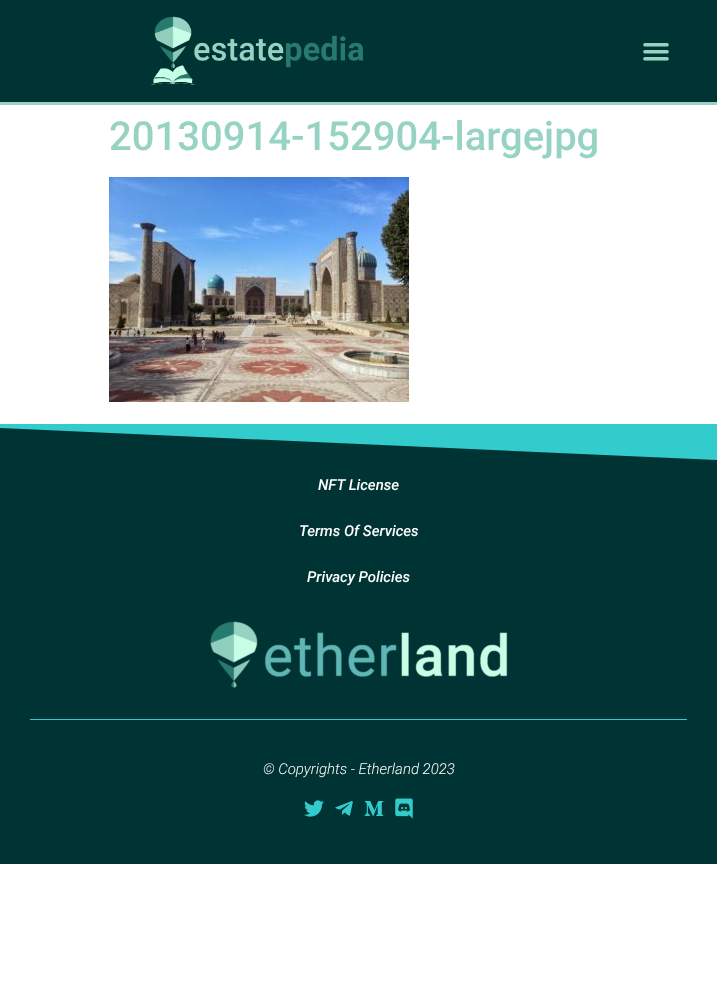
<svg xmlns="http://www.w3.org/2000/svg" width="717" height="981">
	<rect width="100%" height="100%" fill="#FFFFFF" />
	<rect x="0" y="0" width="717" height="102" fill="#003333" />
	<rect x="0" y="102" width="717" height="3" fill="#97D3C3" />
	<image x="151" y="16" width="213" height="69" href="assets/img1.png" />
	<image x="643" y="43" width="26" height="18" href="assets/img2.png" />
	<text x="109" y="150" font-family="Roboto" font-size="40" font-weight="500" fill="#97D3C3">20130914-152904-largejpg</text>
	<image x="109" y="177" width="300" height="225" href="assets/img3.png" />
	<rect x="0" y="428" width="717" height="436" fill="#003333" />
	<rect x="0" y="424" width="717" height="2" fill="#33CCCC" />
	<path d="M0 428V426H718V460Z" fill="#33CCCC" />
	<rect x="30" y="719" width="657" height="1" fill="#33CCCC" />
	<g font-family="Roboto" font-size="15" font-weight="500" font-style="italic" fill="#FFFFFF">
		<text x="318" y="490">NFT License</text>
		<text x="299" y="536">Terms Of Services</text>
		<text x="307" y="582">Privacy Policies</text>
	</g>
	<image x="210" y="621" width="298" height="67" href="assets/img4.png" />
	<text x="263" y="774" font-family="Roboto" font-size="15" font-weight="300" font-style="italic" fill="#FFFFFF">© Copyrights - Etherland 2023</text>
	<image x="304" y="800" width="20" height="17" href="assets/img5.png" />
	<image x="335" y="801" width="18" height="15" href="assets/img6.png" />
	<image x="364" y="801" width="20" height="15" href="assets/img7.png" />
	<image x="395" y="798" width="18" height="21" href="assets/img8.png" />
</svg>
